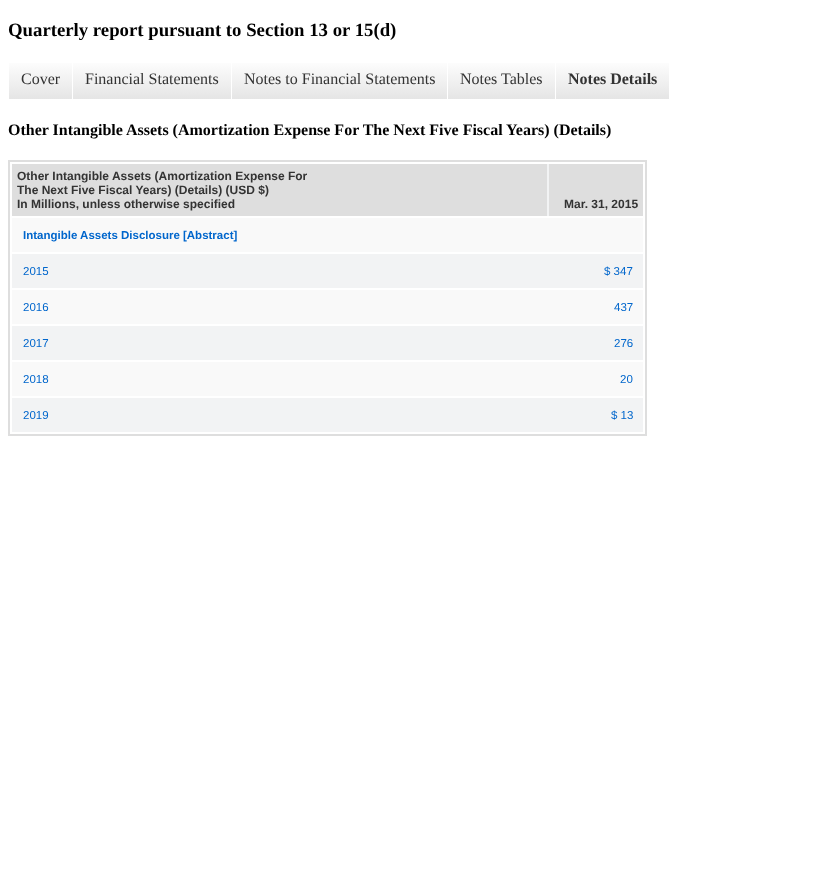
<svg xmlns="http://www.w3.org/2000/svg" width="815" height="885">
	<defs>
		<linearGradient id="g1" gradientUnits="userSpaceOnUse" x1="41" y1="59" x2="41" y2="99"><stop offset="0" stop-color="#FFFFFF" /><stop offset="1" stop-color="#E5E5E5" /></linearGradient>
		<linearGradient id="g2" gradientUnits="userSpaceOnUse" x1="152" y1="59" x2="152" y2="99"><stop offset="0" stop-color="#FFFFFF" /><stop offset="1" stop-color="#E5E5E5" /></linearGradient>
		<linearGradient id="g3" gradientUnits="userSpaceOnUse" x1="340" y1="59" x2="340" y2="99"><stop offset="0" stop-color="#FFFFFF" /><stop offset="1" stop-color="#E5E5E5" /></linearGradient>
		<linearGradient id="g4" gradientUnits="userSpaceOnUse" x1="502" y1="59" x2="502" y2="99"><stop offset="0" stop-color="#FFFFFF" /><stop offset="1" stop-color="#E5E5E5" /></linearGradient>
		<linearGradient id="g5" gradientUnits="userSpaceOnUse" x1="613" y1="59" x2="613" y2="99"><stop offset="0" stop-color="#FFFFFF" /><stop offset="1" stop-color="#E5E5E5" /></linearGradient>
	</defs>
	<rect width="100%" height="100%" fill="#FFFFFF" />
	<text x="8" y="36" font-family="Liberation Serif" font-size="18.75" font-weight="700" fill="#000000">Quarterly report pursuant to Section 13 or 15(d)</text>
	<rect x="9" y="63" width="63" height="36" fill="url(#g1)" />
	<text x="21" y="84" font-family="Liberation Serif" font-size="16" fill="#333333">Cover</text>
	<rect x="73" y="63" width="158" height="36" fill="url(#g2)" />
	<text x="85" y="84" font-family="Liberation Serif" font-size="16" fill="#333333">Financial Statements</text>
	<rect x="232" y="63" width="215" height="36" fill="url(#g3)" />
	<text x="244" y="84" font-family="Liberation Serif" font-size="16" fill="#333333">Notes to Financial Statements</text>
	<rect x="448" y="63" width="107" height="36" fill="url(#g4)" />
	<text x="460" y="84" font-family="Liberation Serif" font-size="16" fill="#333333">Notes Tables</text>
	<rect x="556" y="63" width="113" height="36" fill="url(#g5)" />
	<text x="568" y="84" font-family="Liberation Serif" font-size="16" font-weight="700" fill="#333333">Notes Details</text>
	<text x="8" y="135" font-family="Liberation Serif" font-size="16" font-weight="700" fill="#000000">Other Intangible Assets (Amortization Expense For The Next Five Fiscal Years) (Details)</text>
	<rect x="9" y="161" width="637" height="274" fill="none" stroke="#DEDEDE" stroke-width="2" />
	<rect x="547" y="164" width="2" height="52" fill="#F2F3F4" />
	<rect x="12" y="164" width="535" height="52" fill="#DEDEDE" />
	<g font-family="Liberation Sans" font-size="12" font-weight="700" fill="#333333">
		<text x="17" y="180">Other Intangible Assets (Amortization Expense For</text>
		<text x="17" y="194">The Next Five Fiscal Years) (Details) (USD $)</text>
		<text x="17" y="208">In Millions, unless otherwise specified</text>
	</g>
	<rect x="549" y="164" width="94" height="52" fill="#DEDEDE" />
	<text x="564" y="208" font-family="Liberation Sans" font-size="12" font-weight="700" fill="#333333">Mar. 31, 2015</text>
	<rect x="12" y="218" width="631" height="34" fill="#F9F9F9" />
	<text x="23" y="239" font-family="Liberation Sans" font-size="11.5" font-weight="700" fill="#0066CC">Intangible Assets Disclosure [Abstract]</text>
	<rect x="12" y="254" width="631" height="34" fill="#F2F3F4" />
	<g font-family="Liberation Sans" font-size="11.5" fill="#0066CC">
		<text x="23" y="275">2015</text>
		<text x="604" y="275">$ 347</text>
	</g>
	<rect x="12" y="290" width="631" height="34" fill="#F9F9F9" />
	<g font-family="Liberation Sans" font-size="11.5" fill="#0066CC">
		<text x="23" y="311">2016</text>
		<text x="614" y="311">437</text>
	</g>
	<rect x="12" y="326" width="631" height="34" fill="#F2F3F4" />
	<g font-family="Liberation Sans" font-size="11.5" fill="#0066CC">
		<text x="23" y="347">2017</text>
		<text x="614" y="347">276</text>
	</g>
	<rect x="12" y="362" width="631" height="34" fill="#F9F9F9" />
	<g font-family="Liberation Sans" font-size="11.5" fill="#0066CC">
		<text x="23" y="383">2018</text>
		<text x="620" y="383">20</text>
	</g>
	<rect x="12" y="398" width="631" height="34" fill="#F2F3F4" />
	<g font-family="Liberation Sans" font-size="11.5" fill="#0066CC">
		<text x="23" y="419">2019</text>
		<text x="611" y="419">$ 13</text>
	</g>
</svg>
